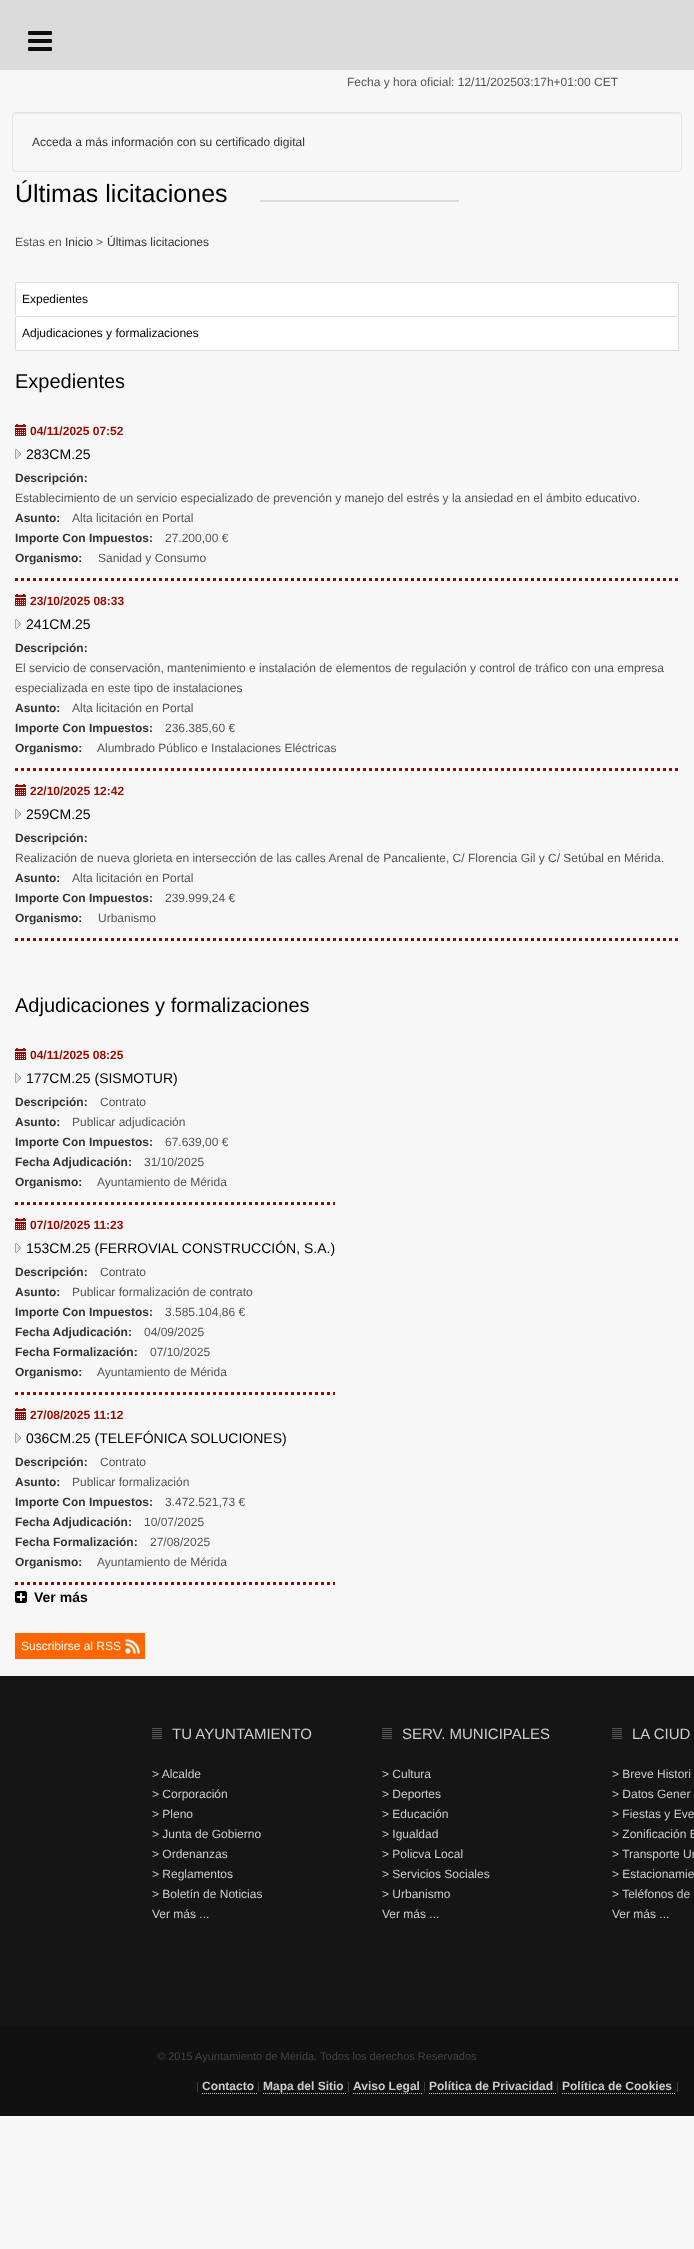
<svg xmlns="http://www.w3.org/2000/svg" width="694" height="2249">
	<rect width="100%" height="100%" fill="#F7F7F7" />
	<text x="347" y="86" font-family="Liberation Sans" font-size="12" fill="#555555">Fecha y hora oficial: 12/11/202503:17h+01:00 CET</text>
	<rect x="0" y="0" width="694" height="70" fill="#DBDBDB" />
	<image x="28" y="31" width="24" height="20" href="assets/img1.png" />
	<path d="M16 114H678C680 114 681 115 681 117V116C681 114 680 113 678 113H16C14 113 13 114 13 116V117C13 115 14 114 16 114Z" fill="#E9E9E9" />
	<rect x="12.5" y="112.5" width="669" height="59" rx="3.5" fill="none" stroke="#E3E3E3" />
	<text x="32" y="146" font-family="Liberation Sans" font-size="12" fill="#333333">Acceda a más información con su certificado digital</text>
	<text x="15" y="202" font-family="Liberation Sans" font-size="25" fill="#000000">Últimas licitaciones</text>
	<rect x="260" y="200" width="199" height="2" fill="#DDDDDD" />
	<text x="15" y="246" font-family="Liberation Sans" font-size="12" fill="#555555">Estas en</text>
	<text x="65" y="246" font-family="Liberation Sans" font-size="12" fill="#333333">Inicio</text>
	<text x="96" y="246" font-family="Liberation Sans" font-size="12" fill="#555555">&gt;</text>
	<text x="107" y="246" font-family="Liberation Sans" font-size="12" fill="#333333">Últimas licitaciones</text>
	<rect x="15" y="350" width="664" height="1" fill="#DDDDDD" />
	<path d="M17 282H677C678 282 679 283 679 284V316H15V284C15 283 16 282 17 282Z" fill="#FFFFFF" />
	<path d="M17 282L16 283V284L17 283H678L677 282Z" fill="#DDDDDD" />
	<path d="M679 316V284L678.5 282.5L678 283V315Z" fill="#DDDDDD" />
	<path d="M15 316L16 315V284L16.5 283.5L15.5 282.5L15 284Z" fill="#DDDDDD" />
	<text x="22" y="303" font-family="Liberation Sans" font-size="12" fill="#000000">Expedientes</text>
	<path d="M17 316H677C678 316 679 317 679 318V350H15V318C15 317 16 316 17 316Z" fill="#FFFFFF" />
	<path d="M17 316L16 317V318L17 317H678L677 316Z" fill="#DDDDDD" />
	<path d="M679 350V318L678.5 316.5L678 317V349Z" fill="#DDDDDD" />
	<path d="M15 350L16 349V318L16.5 317.5L15.5 316.5L15 318Z" fill="#DDDDDD" />
	<text x="22" y="337" font-family="Liberation Sans" font-size="12" fill="#000000">Adjudicaciones y formalizaciones</text>
	<text x="15" y="388" font-family="Liberation Sans" font-size="20" fill="#000000">Expedientes</text>
	<path d="M15 579.5H679" fill="none" stroke="#970A00" stroke-width="3" stroke-dasharray="3 3" />
	<image x="15" y="424" width="11" height="12" href="assets/img2.png" />
	<text x="30" y="435" font-family="Liberation Sans" font-size="12" font-weight="700" fill="#970A00">04/11/2025 07:52</text>
	<image x="15" y="449" width="6" height="10" href="assets/img3.png" />
	<text x="26" y="459" font-family="Liberation Sans" font-size="14" fill="#000000">283CM.25</text>
	<text x="15" y="482" font-family="Liberation Sans" font-size="12" font-weight="700" fill="#333333">Descripción:</text>
	<text x="15" y="502" font-family="Liberation Sans" font-size="12" fill="#555555">Establecimiento de un servicio especializado de prevención y manejo del estrés y la ansiedad en el ámbito educativo.</text>
	<text x="15" y="522" font-family="Liberation Sans" font-size="12" font-weight="700" fill="#333333">Asunto:</text>
	<text x="72" y="522" font-family="Liberation Sans" font-size="12" fill="#555555">Alta licitación en Portal</text>
	<text x="15" y="542" font-family="Liberation Sans" font-size="12" font-weight="700" fill="#333333">Importe Con Impuestos:</text>
	<text x="165" y="542" font-family="Liberation Sans" font-size="12" fill="#555555">27.200,00 €</text>
	<text x="15" y="562" font-family="Liberation Sans" font-size="12" font-weight="700" fill="#333333">Organismo:</text>
	<text x="98" y="562" font-family="Liberation Sans" font-size="12" fill="#555555">Sanidad y Consumo</text>
	<path d="M15 769.5H679" fill="none" stroke="#970A00" stroke-width="3" stroke-dasharray="3 3" />
	<image x="15" y="594" width="11" height="12" href="assets/img2.png" />
	<text x="30" y="605" font-family="Liberation Sans" font-size="12" font-weight="700" fill="#970A00">23/10/2025 08:33</text>
	<image x="15" y="619" width="6" height="10" href="assets/img3.png" />
	<text x="26" y="629" font-family="Liberation Sans" font-size="14" fill="#000000">241CM.25</text>
	<text x="15" y="652" font-family="Liberation Sans" font-size="12" font-weight="700" fill="#333333">Descripción:</text>
	<g font-family="Liberation Sans" font-size="12" fill="#555555">
		<text x="15" y="672">El servicio de conservación, mantenimiento e instalación de elementos de regulación y control de tráfico con una empresa</text>
		<text x="15" y="692">especializada en este tipo de instalaciones</text>
	</g>
	<text x="15" y="712" font-family="Liberation Sans" font-size="12" font-weight="700" fill="#333333">Asunto:</text>
	<text x="72" y="712" font-family="Liberation Sans" font-size="12" fill="#555555">Alta licitación en Portal</text>
	<text x="15" y="732" font-family="Liberation Sans" font-size="12" font-weight="700" fill="#333333">Importe Con Impuestos:</text>
	<text x="165" y="732" font-family="Liberation Sans" font-size="12" fill="#555555">236.385,60 €</text>
	<text x="15" y="752" font-family="Liberation Sans" font-size="12" font-weight="700" fill="#333333">Organismo:</text>
	<text x="97" y="752" font-family="Liberation Sans" font-size="12" fill="#555555">Alumbrado Público e Instalaciones Eléctricas</text>
	<path d="M15 939.5H679" fill="none" stroke="#970A00" stroke-width="3" stroke-dasharray="3 3" />
	<image x="15" y="784" width="11" height="12" href="assets/img2.png" />
	<text x="30" y="795" font-family="Liberation Sans" font-size="12" font-weight="700" fill="#970A00">22/10/2025 12:42</text>
	<image x="15" y="809" width="6" height="10" href="assets/img3.png" />
	<text x="26" y="819" font-family="Liberation Sans" font-size="14" fill="#000000">259CM.25</text>
	<text x="15" y="842" font-family="Liberation Sans" font-size="12" font-weight="700" fill="#333333">Descripción:</text>
	<text x="15" y="862" font-family="Liberation Sans" font-size="12" fill="#555555">Realización de nueva glorieta en intersección de las calles Arenal de Pancaliente, C/ Florencia Gil y C/ Setúbal en Mérida.</text>
	<text x="15" y="882" font-family="Liberation Sans" font-size="12" font-weight="700" fill="#333333">Asunto:</text>
	<text x="72" y="882" font-family="Liberation Sans" font-size="12" fill="#555555">Alta licitación en Portal</text>
	<text x="15" y="902" font-family="Liberation Sans" font-size="12" font-weight="700" fill="#333333">Importe Con Impuestos:</text>
	<text x="165" y="902" font-family="Liberation Sans" font-size="12" fill="#555555">239.999,24 €</text>
	<text x="15" y="922" font-family="Liberation Sans" font-size="12" font-weight="700" fill="#333333">Organismo:</text>
	<text x="98" y="922" font-family="Liberation Sans" font-size="12" fill="#555555">Urbanismo</text>
	<text x="15" y="1012" font-family="Liberation Sans" font-size="20" fill="#000000">Adjudicaciones y formalizaciones</text>
	<path d="M15 1203.5H335" fill="none" stroke="#970A00" stroke-width="3" stroke-dasharray="3 3" />
	<image x="15" y="1048" width="11" height="12" href="assets/img2.png" />
	<text x="30" y="1059" font-family="Liberation Sans" font-size="12" font-weight="700" fill="#970A00">04/11/2025 08:25</text>
	<image x="15" y="1073" width="6" height="10" href="assets/img3.png" />
	<text x="26" y="1083" font-family="Liberation Sans" font-size="14" fill="#000000">177CM.25 (SISMOTUR)</text>
	<text x="15" y="1106" font-family="Liberation Sans" font-size="12" font-weight="700" fill="#333333">Descripción:</text>
	<text x="100" y="1106" font-family="Liberation Sans" font-size="12" fill="#555555">Contrato</text>
	<text x="15" y="1126" font-family="Liberation Sans" font-size="12" font-weight="700" fill="#333333">Asunto:</text>
	<text x="72" y="1126" font-family="Liberation Sans" font-size="12" fill="#555555">Publicar adjudicación</text>
	<text x="15" y="1146" font-family="Liberation Sans" font-size="12" font-weight="700" fill="#333333">Importe Con Impuestos:</text>
	<text x="165" y="1146" font-family="Liberation Sans" font-size="12" fill="#555555">67.639,00 €</text>
	<text x="15" y="1166" font-family="Liberation Sans" font-size="12" font-weight="700" fill="#333333">Fecha Adjudicación:</text>
	<text x="144" y="1166" font-family="Liberation Sans" font-size="12" fill="#555555">31/10/2025</text>
	<text x="15" y="1186" font-family="Liberation Sans" font-size="12" font-weight="700" fill="#333333">Organismo:</text>
	<text x="97" y="1186" font-family="Liberation Sans" font-size="12" fill="#555555">Ayuntamiento de Mérida</text>
	<path d="M15 1393.5H335" fill="none" stroke="#970A00" stroke-width="3" stroke-dasharray="3 3" />
	<image x="15" y="1218" width="11" height="12" href="assets/img2.png" />
	<text x="30" y="1229" font-family="Liberation Sans" font-size="12" font-weight="700" fill="#970A00">07/10/2025 11:23</text>
	<image x="15" y="1243" width="6" height="10" href="assets/img3.png" />
	<text x="26" y="1253" font-family="Liberation Sans" font-size="14" fill="#000000">153CM.25 (FERROVIAL CONSTRUCCIÓN, S.A.)</text>
	<text x="15" y="1276" font-family="Liberation Sans" font-size="12" font-weight="700" fill="#333333">Descripción:</text>
	<text x="100" y="1276" font-family="Liberation Sans" font-size="12" fill="#555555">Contrato</text>
	<text x="15" y="1296" font-family="Liberation Sans" font-size="12" font-weight="700" fill="#333333">Asunto:</text>
	<text x="72" y="1296" font-family="Liberation Sans" font-size="12" fill="#555555">Publicar formalización de contrato</text>
	<text x="15" y="1316" font-family="Liberation Sans" font-size="12" font-weight="700" fill="#333333">Importe Con Impuestos:</text>
	<text x="165" y="1316" font-family="Liberation Sans" font-size="12" fill="#555555">3.585.104,86 €</text>
	<text x="15" y="1336" font-family="Liberation Sans" font-size="12" font-weight="700" fill="#333333">Fecha Adjudicación:</text>
	<text x="144" y="1336" font-family="Liberation Sans" font-size="12" fill="#555555">04/09/2025</text>
	<text x="15" y="1356" font-family="Liberation Sans" font-size="12" font-weight="700" fill="#333333">Fecha Formalización:</text>
	<text x="150" y="1356" font-family="Liberation Sans" font-size="12" fill="#555555">07/10/2025</text>
	<text x="15" y="1376" font-family="Liberation Sans" font-size="12" font-weight="700" fill="#333333">Organismo:</text>
	<text x="97" y="1376" font-family="Liberation Sans" font-size="12" fill="#555555">Ayuntamiento de Mérida</text>
	<path d="M15 1583.5H335" fill="none" stroke="#970A00" stroke-width="3" stroke-dasharray="3 3" />
	<image x="15" y="1408" width="11" height="12" href="assets/img2.png" />
	<text x="30" y="1419" font-family="Liberation Sans" font-size="12" font-weight="700" fill="#970A00">27/08/2025 11:12</text>
	<image x="15" y="1433" width="6" height="10" href="assets/img3.png" />
	<text x="26" y="1443" font-family="Liberation Sans" font-size="14" fill="#000000">036CM.25 (TELEFÓNICA SOLUCIONES)</text>
	<text x="15" y="1466" font-family="Liberation Sans" font-size="12" font-weight="700" fill="#333333">Descripción:</text>
	<text x="100" y="1466" font-family="Liberation Sans" font-size="12" fill="#555555">Contrato</text>
	<text x="15" y="1486" font-family="Liberation Sans" font-size="12" font-weight="700" fill="#333333">Asunto:</text>
	<text x="72" y="1486" font-family="Liberation Sans" font-size="12" fill="#555555">Publicar formalización</text>
	<text x="15" y="1506" font-family="Liberation Sans" font-size="12" font-weight="700" fill="#333333">Importe Con Impuestos:</text>
	<text x="165" y="1506" font-family="Liberation Sans" font-size="12" fill="#555555">3.472.521,73 €</text>
	<text x="15" y="1526" font-family="Liberation Sans" font-size="12" font-weight="700" fill="#333333">Fecha Adjudicación:</text>
	<text x="144" y="1526" font-family="Liberation Sans" font-size="12" fill="#555555">10/07/2025</text>
	<text x="15" y="1546" font-family="Liberation Sans" font-size="12" font-weight="700" fill="#333333">Fecha Formalización:</text>
	<text x="150" y="1546" font-family="Liberation Sans" font-size="12" fill="#555555">27/08/2025</text>
	<text x="15" y="1566" font-family="Liberation Sans" font-size="12" font-weight="700" fill="#333333">Organismo:</text>
	<text x="97" y="1566" font-family="Liberation Sans" font-size="12" fill="#555555">Ayuntamiento de Mérida</text>
	<image x="15" y="1591" width="12" height="12" href="assets/img4.png" />
	<text x="34" y="1602" font-family="Liberation Sans" font-size="14" font-weight="700" fill="#000000">Ver más</text>
	<rect x="15" y="1633" width="130" height="26" fill="#FF6600" />
	<text x="21" y="1650" font-family="Liberation Sans" font-size="12" fill="#FFFFFF">Suscribirse al RSS</text>
	<image x="125" y="1639" width="15" height="15" href="assets/img5.png" />
	<rect x="0" y="1676" width="694" height="350" fill="#151515" />
	<image x="152" y="1728" width="10" height="11" href="assets/img6.png" />
	<text x="172" y="1739" font-family="Liberation Sans" font-size="15" fill="#CCCCCC">TU AYUNTAMIENTO</text>
	<g font-family="Liberation Sans" font-size="12" fill="#CCCCCC">
		<text x="152" y="1778">&gt; Alcalde</text>
		<text x="152" y="1798">&gt; Corporación</text>
		<text x="152" y="1818">&gt; Pleno</text>
		<text x="152" y="1838">&gt; Junta de Gobierno</text>
		<text x="152" y="1858">&gt; Ordenanzas</text>
		<text x="152" y="1878">&gt; Reglamentos</text>
		<text x="152" y="1898">&gt; Boletín de Noticias</text>
		<text x="152" y="1918">Ver más ...</text>
	</g>
	<image x="382" y="1728" width="10" height="11" href="assets/img6.png" />
	<text x="402" y="1739" font-family="Liberation Sans" font-size="15" fill="#CCCCCC">SERV. MUNICIPALES</text>
	<g font-family="Liberation Sans" font-size="12" fill="#CCCCCC">
		<text x="382" y="1778">&gt; Cultura</text>
		<text x="382" y="1798">&gt; Deportes</text>
		<text x="382" y="1818">&gt; Educación</text>
		<text x="382" y="1838">&gt; Igualdad</text>
		<text x="382" y="1858">&gt; Policva Local</text>
		<text x="382" y="1878">&gt; Servicios Sociales</text>
		<text x="382" y="1898">&gt; Urbanismo</text>
		<text x="382" y="1918">Ver más ...</text>
	</g>
	<image x="612" y="1728" width="10" height="11" href="assets/img6.png" />
	<text x="632" y="1739" font-family="Liberation Sans" font-size="15" fill="#CCCCCC">LA CIUD</text>
	<g font-family="Liberation Sans" font-size="12" fill="#CCCCCC">
		<text x="612" y="1778">&gt; Breve Histori</text>
		<text x="612" y="1798">&gt; Datos Gener</text>
		<text x="612" y="1818">&gt; Fiestas y Eve</text>
		<text x="612" y="1838">&gt; Zonificación E</text>
		<text x="612" y="1858">&gt; Transporte Ur</text>
		<text x="612" y="1878">&gt; Estacionamie</text>
		<text x="612" y="1898">&gt; Teléfonos de</text>
		<text x="612" y="1918">Ver más ...</text>
	</g>
	<rect x="0" y="2026" width="694" height="90" fill="#111111" />
	<g font-family="Liberation Sans" font-size="11" fill="#444444">
		<text x="157" y="2060">© 2015 Ayuntamiento de Mérida. Todos los derechos Reservados</text>
		<text x="196" y="2090">|</text>
	</g>
	<text x="202" y="2090" font-family="Liberation Sans" font-size="12" font-weight="700" fill="#CCCCCC">Contacto</text>
	<path d="M202 2093.5H257" fill="none" stroke="#CCCCCC" stroke-dasharray="1 1" />
	<text x="257" y="2090" font-family="Liberation Sans" font-size="11" fill="#444444">|</text>
	<text x="263" y="2090" font-family="Liberation Sans" font-size="12" font-weight="700" fill="#CCCCCC">Mapa del Sitio</text>
	<path d="M263 2093.5H347" fill="none" stroke="#CCCCCC" stroke-dasharray="1 1" />
	<text x="347" y="2090" font-family="Liberation Sans" font-size="11" fill="#444444">|</text>
	<text x="353" y="2090" font-family="Liberation Sans" font-size="12" font-weight="700" fill="#CCCCCC">Aviso Legal</text>
	<path d="M353 2093.5H423" fill="none" stroke="#CCCCCC" stroke-dasharray="1 1" />
	<text x="423" y="2090" font-family="Liberation Sans" font-size="11" fill="#444444">|</text>
	<text x="429" y="2090" font-family="Liberation Sans" font-size="12" font-weight="700" fill="#CCCCCC">Política de Privacidad</text>
	<path d="M429 2093.5H556" fill="none" stroke="#CCCCCC" stroke-dasharray="1 1" />
	<text x="556" y="2090" font-family="Liberation Sans" font-size="11" fill="#444444">|</text>
	<text x="562" y="2090" font-family="Liberation Sans" font-size="12" font-weight="700" fill="#CCCCCC">Política de Cookies</text>
	<path d="M562 2093.5H676" fill="none" stroke="#CCCCCC" stroke-dasharray="1 1" />
	<text x="676" y="2090" font-family="Liberation Sans" font-size="11" fill="#444444">|</text>
</svg>
